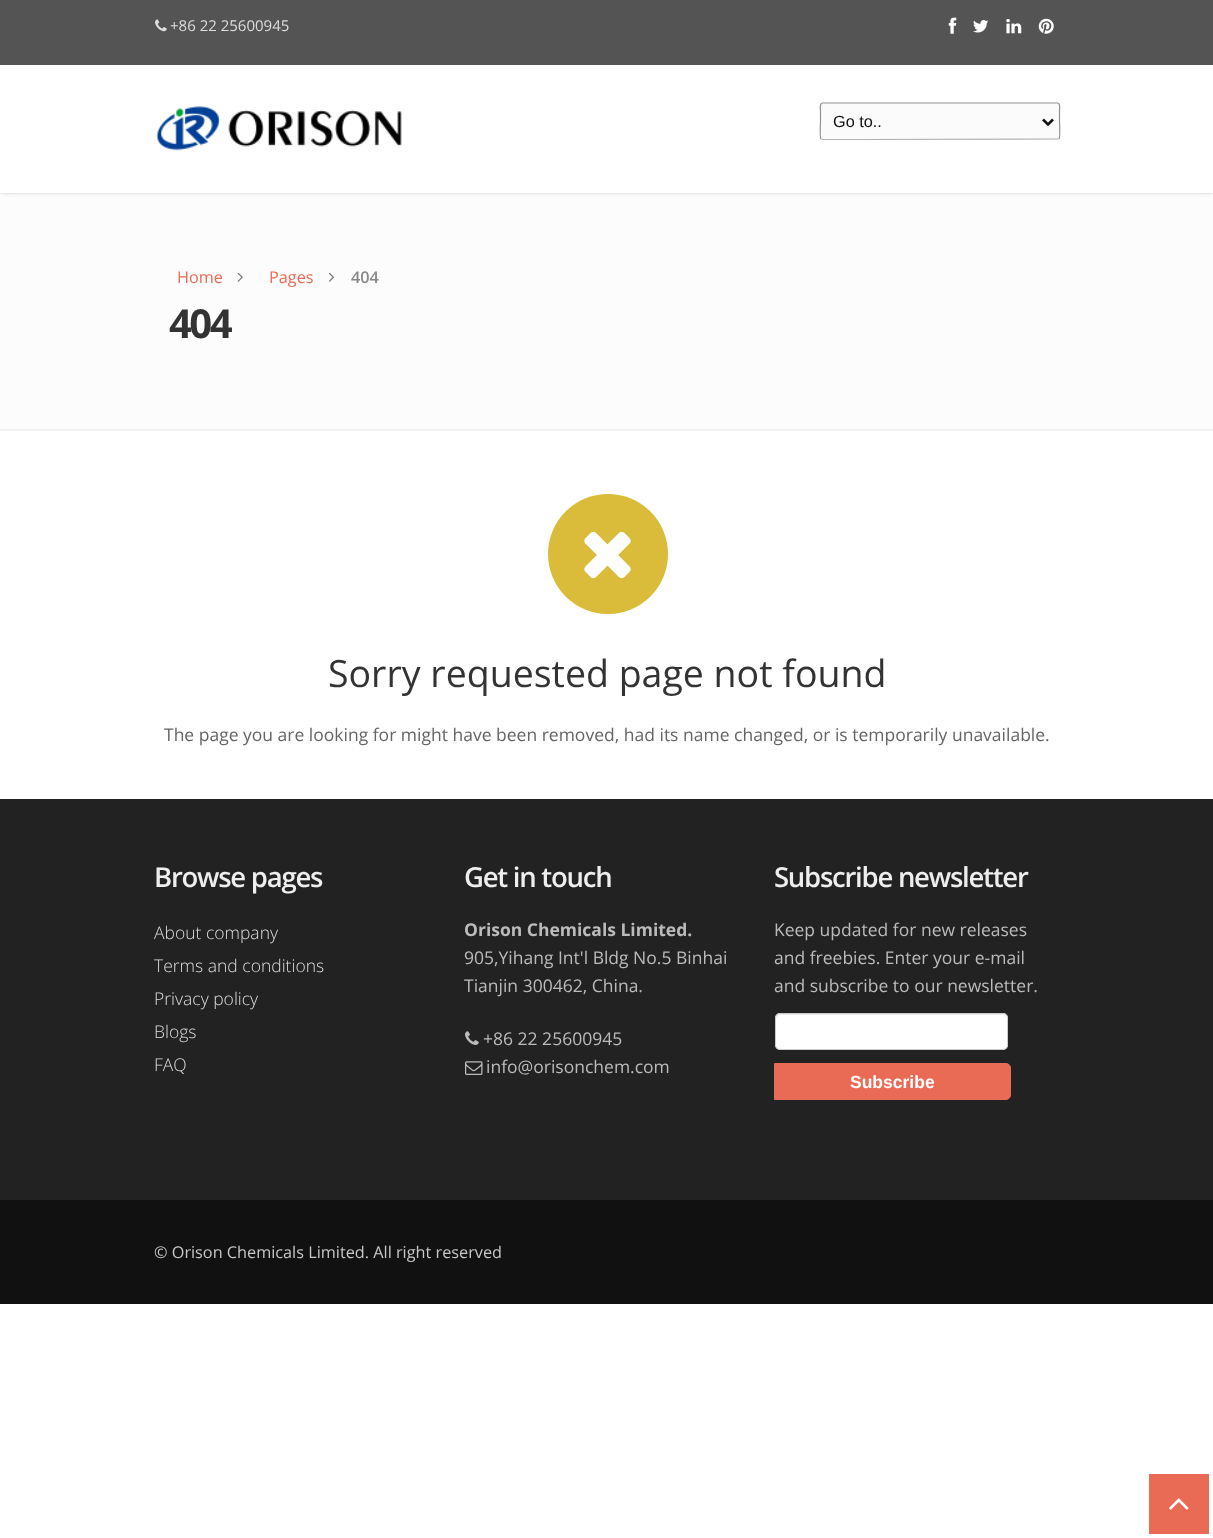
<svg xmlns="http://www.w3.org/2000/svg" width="1213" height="1538">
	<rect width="100%" height="100%" fill="#FFFFFF" />
	<rect x="0" y="194" width="1213" height="235" fill="#FCFCFC" />
	<rect x="0" y="193" width="1213" height="1" fill="#EEEEEE" />
	<rect x="3" y="5" width="1208" height="188" fill="#DDDDDD" filter="blur(2.5px)" />
	<rect x="0" y="65" width="1213" height="128" fill="#FFFFFF" />
	<rect x="0" y="0" width="1213" height="65" fill="#545454" />
	<image x="155" y="19" width="12" height="13" href="assets/img1.png" />
	<text x="170" y="31" font-family="Open Sans" font-size="15" fill="#DDDDDD">+86 22 25600945</text>
	<image x="948" y="17" width="9" height="17" href="assets/img2.png" />
	<image x="973" y="20" width="16" height="13" href="assets/img3.png" />
	<image x="1006" y="19" width="16" height="15" href="assets/img4.png" />
	<image x="1038" y="18" width="16" height="16" href="assets/img5.png" />
	<image x="156" y="106" width="246" height="45" href="assets/img6.png" />
	<rect x="820" y="103" width="240" height="37" rx="2.5" fill="#FBFBFB" />
	<path d="M1059 139L861.5 139.5H822.5L821 139" fill="none" stroke="#B3B3B3" stroke-width="1.2" />
	<path d="M821 139C819.5 137.5 820.5 124 820.5 121V110.5C820.5 109.5 819.5 103 822.5 103H1057.5C1060.5 103 1059.5 109.5 1059.5 110.5V121C1059.5 124 1060.5 137.5 1059 139" fill="none" stroke="#919191" stroke-width="1.2" />
	<path d="M1043 119.5L1048 124.5L1053 119.5" fill="none" stroke="#111111" stroke-width="2.5" />
	<text x="833" y="127" font-family="Liberation Sans" font-size="16.25" fill="#111111">Go to..</text>
	<rect x="0" y="429" width="1213" height="1" fill="#EEEEEE" />
	<text x="177" y="283" font-family="Open Sans" font-size="16.25" fill="#E96B56">Home</text>
	<image x="237" y="272" width="6" height="10" href="assets/img7.png" />
	<text x="269" y="283" font-family="Open Sans" font-size="16.25" fill="#E96B56">Pages</text>
	<image x="328" y="272" width="7" height="10" href="assets/img8.png" />
	<text x="351" y="283" font-family="Open Sans" font-size="16.25" font-weight="600" fill="#888888">404</text>
	<text x="169" y="338" font-family="Open Sans" font-size="40" font-weight="700" letter-spacing="-2.5" fill="#333333">404</text>
	<rect x="0" y="430" width="1213" height="1" fill="#F2F2F2" />
	<circle cx="608" cy="554" r="60" fill="#DABB3A" />
	<image x="584" y="531" width="47" height="48" href="assets/img9.png" />
	<text x="328" y="687" font-family="Open Sans" font-size="37.5" fill="#333333">Sorry requested page not found</text>
	<text x="164" y="741" font-family="Open Sans" font-size="17.5" fill="#656565">The page you are looking for might have been removed, had its name changed, or is temporarily unavailable.</text>
	<rect x="0" y="799" width="1213" height="401" fill="#222222" />
	<text x="154" y="887" font-family="Open Sans" font-size="27.5" font-weight="600" letter-spacing="-1.25" fill="#EEEEEE">Browse pages</text>
	<g font-family="Open Sans" font-size="17.5" font-weight="300" fill="#DDDDDD">
		<text x="154" y="939">About company</text>
		<text x="154" y="972">Terms and conditions</text>
		<text x="154" y="1005">Privacy policy</text>
		<text x="154" y="1038">Blogs</text>
		<text x="154" y="1071">FAQ</text>
	</g>
	<text x="464" y="887" font-family="Open Sans" font-size="27.5" font-weight="600" letter-spacing="-1.25" fill="#EEEEEE">Get in touch</text>
	<text x="464" y="936" font-family="Open Sans" font-size="17.5" font-weight="700" fill="#BBBBBB">Orison Chemicals Limited.</text>
	<g font-family="Open Sans" font-size="17.5" fill="#BBBBBB">
		<text x="464" y="964">905,Yihang Int'l Bldg No.5 Binhai</text>
		<text x="464" y="992">Tianjin 300462, China.</text>
	</g>
	<image x="465" y="1031" width="14" height="14" href="assets/img10.png" />
	<text x="483" y="1045" font-family="Open Sans" font-size="17.5" fill="#BBBBBB">+86 22 25600945</text>
	<image x="465" y="1061" width="18" height="14" href="assets/img11.png" />
	<text x="486" y="1073" font-family="Open Sans" font-size="17.5" fill="#BBBBBB">info@orisonchem.com</text>
	<text x="774" y="887" font-family="Open Sans" font-size="27.5" font-weight="600" letter-spacing="-1.25" fill="#EEEEEE">Subscribe newsletter</text>
	<g font-family="Open Sans" font-size="17.5" fill="#BBBBBB">
		<text x="774" y="936">Keep updated for new releases</text>
		<text x="774" y="964">and freebies. Enter your e-mail</text>
		<text x="774" y="992">and subscribe to our newsletter.</text>
	</g>
	<rect x="775" y="1013" width="233" height="37" rx="5" fill="#FFFFFF" />
	<path d="M780 1015H1002C1005 1015 1006 1017 1006 1019C1006 1016 1005 1014 1002 1014H780C777 1014 776 1016 776 1019C776 1017 778 1015 780 1015Z" fill="#ECECEC" />
	<rect x="775.5" y="1013.5" width="232" height="36" rx="4.5" fill="none" stroke="#CCCCCC" />
	<path d="M774.5 1063.5H1006C1008.5 1063.5 1010.5 1065.5 1010.5 1068V1095C1010.5 1097.5 1008.5 1099.5 1006 1099.5H774.5Z" fill="#E96B56" stroke="#E96B56" />
	<text x="850" y="1088" font-family="Liberation Sans" font-size="17.5" font-weight="700" fill="#FFFFFF">Subscribe</text>
	<rect x="0" y="1200" width="1213" height="104" fill="#111111" />
	<text x="154" y="1258" font-family="Open Sans" font-size="16.25" fill="#C7C7C7">© Orison Chemicals Limited. All right reserved</text>
	<rect x="1149" y="1474" width="60" height="60" fill="#E96B56" />
	<image x="1169" y="1498" width="20" height="12" href="assets/img12.png" />
</svg>
